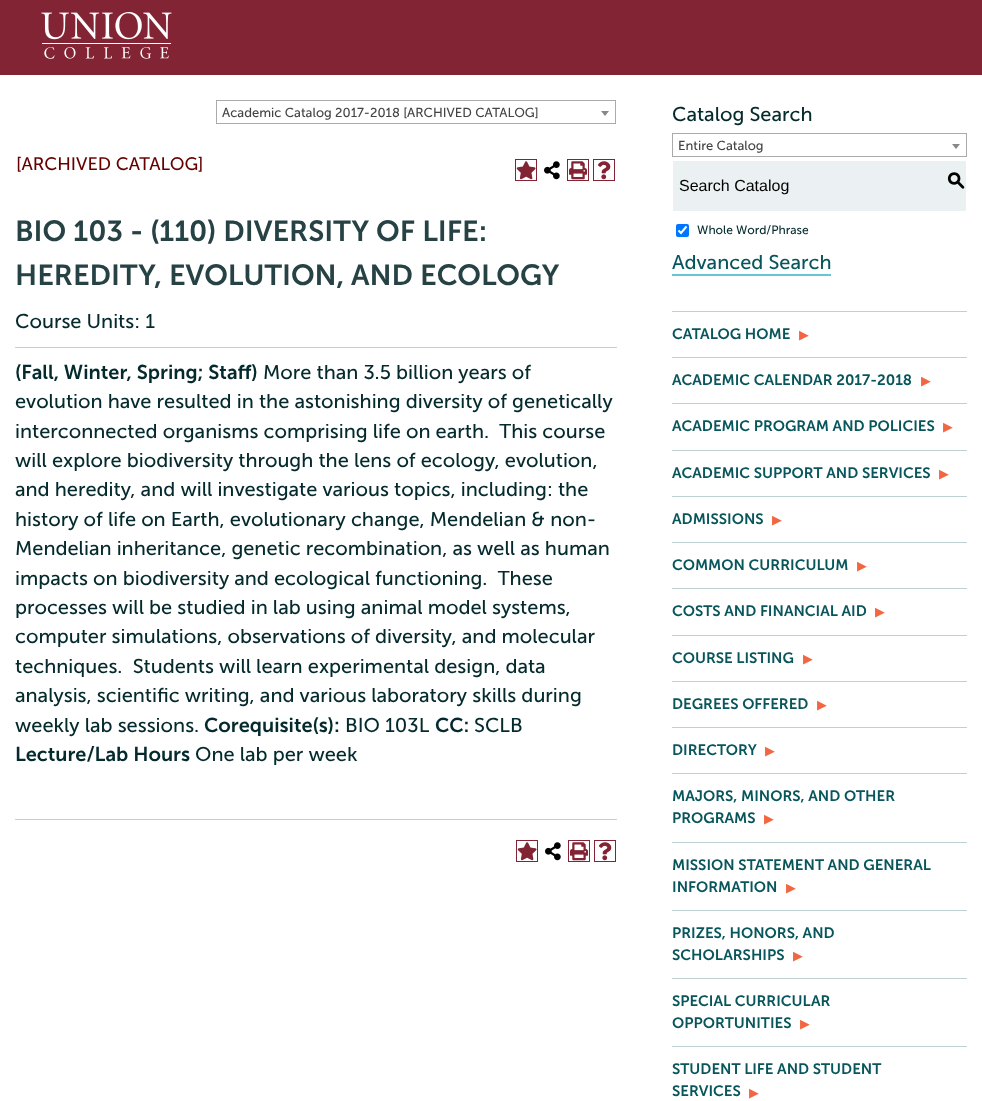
<svg xmlns="http://www.w3.org/2000/svg" width="982" height="1101">
	<rect width="100%" height="100%" fill="#FFFFFF" />
	<rect x="0" y="0" width="982" height="75" fill="#822433" />
	<image x="41" y="12" width="131" height="47" href="assets/img1.png" />
	<text x="16" y="170" font-family="'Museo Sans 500'" font-size="18" fill="#660000">[ARCHIVED CATALOG]</text>
	<rect x="515.5" y="159.5" width="21" height="21" fill="none" stroke="#822433" />
	<image x="516" y="161" width="20" height="19" href="assets/img2.png" />
	<image x="544" y="161" width="16" height="19" href="assets/img3.png" />
	<rect x="567.5" y="159.5" width="21" height="21" fill="none" stroke="#822433" />
	<image x="569" y="161" width="18" height="19" href="assets/img4.png" />
	<rect x="593.5" y="159.5" width="21" height="21" fill="none" stroke="#822433" />
	<image x="598" y="161" width="13" height="19" href="assets/img5.png" />
	<g font-family="'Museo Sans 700'" font-size="29" font-weight="600" fill="#274244">
		<text x="15" y="241">BIO 103 - (110) DIVERSITY OF LIFE:</text>
		<text x="15" y="285">HEREDITY, EVOLUTION, AND ECOLOGY</text>
	</g>
	<text x="15" y="328" font-family="'Museo Sans 500'" font-size="20" fill="#042A2D">Course Units: 1</text>
	<rect x="15" y="347" width="602" height="1" fill="#CCCCCC" />
	<text x="15" y="379" font-family="'Museo Sans 700'" font-size="20" font-weight="600" fill="#042A2D">(Fall, Winter, Spring; Staff)</text>
	<g font-family="'Museo Sans 500'" font-size="20" fill="#042A2D">
		<text x="263" y="379">More than 3.5 billion years of</text>
		<text x="15" y="408">evolution have resulted in the astonishing diversity of genetically</text>
		<text x="15" y="438" xml:space="preserve">interconnected organisms comprising life on earth.  This course</text>
		<text x="15" y="467">will explore biodiversity through the lens of ecology, evolution,</text>
		<text x="15" y="496">and heredity, and will investigate various topics, including: the</text>
		<text x="15" y="526">history of life on Earth, evolutionary change, Mendelian &amp; non-</text>
		<text x="15" y="555">Mendelian inheritance, genetic recombination, as well as human</text>
		<text x="15" y="585" xml:space="preserve">impacts on biodiversity and ecological functioning.  These</text>
		<text x="15" y="614">processes will be studied in lab using animal model systems,</text>
		<text x="15" y="643">computer simulations, observations of diversity, and molecular</text>
		<text x="15" y="673" xml:space="preserve">techniques.  Students will learn experimental design, data</text>
		<text x="15" y="702">analysis, scientific writing, and various laboratory skills during</text>
		<text x="15" y="732">weekly lab sessions.</text>
	</g>
	<text x="204" y="732" font-family="'Museo Sans 700'" font-size="20" font-weight="600" fill="#042A2D">Corequisite(s):</text>
	<text x="345" y="732" font-family="'Museo Sans 500'" font-size="20" fill="#042A2D">BIO 103L</text>
	<text x="435" y="732" font-family="'Museo Sans 700'" font-size="20" font-weight="600" fill="#042A2D">CC:</text>
	<text x="474" y="732" font-family="'Museo Sans 500'" font-size="20" fill="#042A2D">SCLB</text>
	<text x="15" y="761" font-family="'Museo Sans 700'" font-size="20" font-weight="600" fill="#042A2D">Lecture/Lab Hours</text>
	<text x="195" y="761" font-family="'Museo Sans 500'" font-size="20" fill="#042A2D">One lab per week</text>
	<rect x="15" y="819" width="602" height="1" fill="#CCCCCC" />
	<rect x="516.5" y="840.5" width="21" height="21" fill="none" stroke="#822433" />
	<image x="517" y="842" width="20" height="19" href="assets/img2.png" />
	<image x="545" y="842" width="16" height="19" href="assets/img3.png" />
	<rect x="568.5" y="840.5" width="21" height="21" fill="none" stroke="#822433" />
	<image x="570" y="842" width="18" height="19" href="assets/img4.png" />
	<rect x="594.5" y="840.5" width="21" height="21" fill="none" stroke="#822433" />
	<image x="599" y="842" width="13" height="19" href="assets/img5.png" />
	<text x="672" y="121" font-family="'Museo Sans 500'" font-size="20" fill="#042A2D">Catalog Search</text>
	<rect x="672.5" y="133.5" width="294" height="23" fill="none" stroke="#AAAAAA" />
	<text x="678" y="150" font-family="'Museo Sans 500'" font-size="13" fill="#444444">Entire Catalog</text>
	<path d="M952 144H960L956 149Z" fill="#888888" />
	<rect x="673" y="161" width="293" height="50" fill="#EBF1F2" />
	<text x="679" y="191" font-family="Liberation Sans" font-size="16" fill="#000000">Search Catalog</text>
	<text x="947" y="186" font-family="'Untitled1'" font-size="18" font-weight="500" fill="#000000">S</text>
	<rect x="676" y="224" width="13" height="13" rx="2" fill="#0075FF" />
	<path d="M678.5 230.5L681 233L686.5 226.5" fill="none" stroke="#FFFFFF" stroke-width="2.1" />
	<text x="697" y="234" font-family="'Museo Sans 500'" font-size="12" fill="#042A2D">Whole Word/Phrase</text>
	<text x="672" y="269" font-family="'Museo Sans 500'" font-size="20" fill="#08565C">Advanced Search</text>
	<rect x="672" y="274" width="159" height="2" fill="#66C7D4" />
	<rect x="672" y="311" width="295" height="1" fill="#BDD1D4" />
	<text x="672" y="339" font-family="'Museo Sans 700'" font-size="15" font-weight="600" fill="#08565C">CATALOG HOME</text>
	<text x="799" y="339" font-family="DejaVu Sans" font-size="12" font-weight="700" fill="#F26641">▶</text>
	<rect x="672" y="357" width="295" height="1" fill="#BDD1D4" />
	<text x="672" y="385" font-family="'Museo Sans 700'" font-size="15" font-weight="600" fill="#08565C">ACADEMIC CALENDAR 2017-2018</text>
	<text x="921" y="385" font-family="DejaVu Sans" font-size="12" font-weight="700" fill="#F26641">▶</text>
	<rect x="672" y="403" width="295" height="1" fill="#BDD1D4" />
	<text x="672" y="431" font-family="'Museo Sans 700'" font-size="15" font-weight="600" fill="#08565C">ACADEMIC PROGRAM AND POLICIES</text>
	<text x="943" y="431" font-family="DejaVu Sans" font-size="12" font-weight="700" fill="#F26641">▶</text>
	<rect x="672" y="450" width="295" height="1" fill="#BDD1D4" />
	<text x="672" y="478" font-family="'Museo Sans 700'" font-size="15" font-weight="600" fill="#08565C">ACADEMIC SUPPORT AND SERVICES</text>
	<text x="939" y="478" font-family="DejaVu Sans" font-size="12" font-weight="700" fill="#F26641">▶</text>
	<rect x="672" y="496" width="295" height="1" fill="#BDD1D4" />
	<text x="672" y="524" font-family="'Museo Sans 700'" font-size="15" font-weight="600" fill="#08565C">ADMISSIONS</text>
	<text x="772" y="524" font-family="DejaVu Sans" font-size="12" font-weight="700" fill="#F26641">▶</text>
	<rect x="672" y="542" width="295" height="1" fill="#BDD1D4" />
	<text x="672" y="570" font-family="'Museo Sans 700'" font-size="15" font-weight="600" fill="#08565C">COMMON CURRICULUM</text>
	<text x="857" y="570" font-family="DejaVu Sans" font-size="12" font-weight="700" fill="#F26641">▶</text>
	<rect x="672" y="588" width="295" height="1" fill="#BDD1D4" />
	<text x="672" y="616" font-family="'Museo Sans 700'" font-size="15" font-weight="600" fill="#08565C">COSTS AND FINANCIAL AID</text>
	<text x="875" y="616" font-family="DejaVu Sans" font-size="12" font-weight="700" fill="#F26641">▶</text>
	<rect x="672" y="635" width="295" height="1" fill="#BDD1D4" />
	<text x="672" y="663" font-family="'Museo Sans 700'" font-size="15" font-weight="600" fill="#08565C">COURSE LISTING</text>
	<text x="803" y="663" font-family="DejaVu Sans" font-size="12" font-weight="700" fill="#F26641">▶</text>
	<rect x="672" y="681" width="295" height="1" fill="#BDD1D4" />
	<text x="672" y="709" font-family="'Museo Sans 700'" font-size="15" font-weight="600" fill="#08565C">DEGREES OFFERED</text>
	<text x="817" y="709" font-family="DejaVu Sans" font-size="12" font-weight="700" fill="#F26641">▶</text>
	<rect x="672" y="727" width="295" height="1" fill="#BDD1D4" />
	<text x="672" y="755" font-family="'Museo Sans 700'" font-size="15" font-weight="600" fill="#08565C">DIRECTORY</text>
	<text x="765" y="755" font-family="DejaVu Sans" font-size="12" font-weight="700" fill="#F26641">▶</text>
	<rect x="672" y="773" width="295" height="1" fill="#BDD1D4" />
	<g font-family="'Museo Sans 700'" font-size="15" font-weight="600" fill="#08565C">
		<text x="672" y="801">MAJORS, MINORS, AND OTHER</text>
		<text x="672" y="823">PROGRAMS</text>
	</g>
	<text x="764" y="823" font-family="DejaVu Sans" font-size="12" font-weight="700" fill="#F26641">▶</text>
	<rect x="672" y="842" width="295" height="1" fill="#BDD1D4" />
	<g font-family="'Museo Sans 700'" font-size="15" font-weight="600" fill="#08565C">
		<text x="672" y="870">MISSION STATEMENT AND GENERAL</text>
		<text x="672" y="892">INFORMATION</text>
	</g>
	<text x="786" y="892" font-family="DejaVu Sans" font-size="12" font-weight="700" fill="#F26641">▶</text>
	<rect x="672" y="910" width="295" height="1" fill="#BDD1D4" />
	<g font-family="'Museo Sans 700'" font-size="15" font-weight="600" fill="#08565C">
		<text x="672" y="938">PRIZES, HONORS, AND</text>
		<text x="672" y="960">SCHOLARSHIPS</text>
	</g>
	<text x="793" y="960" font-family="DejaVu Sans" font-size="12" font-weight="700" fill="#F26641">▶</text>
	<rect x="672" y="978" width="295" height="1" fill="#BDD1D4" />
	<g font-family="'Museo Sans 700'" font-size="15" font-weight="600" fill="#08565C">
		<text x="672" y="1006">SPECIAL CURRICULAR</text>
		<text x="672" y="1028">OPPORTUNITIES</text>
	</g>
	<text x="800" y="1028" font-family="DejaVu Sans" font-size="12" font-weight="700" fill="#F26641">▶</text>
	<rect x="672" y="1046" width="295" height="1" fill="#BDD1D4" />
	<g font-family="'Museo Sans 700'" font-size="15" font-weight="600" fill="#08565C">
		<text x="672" y="1074">STUDENT LIFE AND STUDENT</text>
		<text x="672" y="1096">SERVICES</text>
	</g>
	<text x="749" y="1097" font-family="DejaVu Sans" font-size="12" font-weight="700" fill="#F26641">▶</text>
	<rect x="216.5" y="100.5" width="399" height="23" fill="none" stroke="#AAAAAA" />
	<text x="222" y="117" font-family="'Museo Sans 500'" font-size="13" fill="#444444">Academic Catalog 2017-2018 [ARCHIVED CATALOG]</text>
	<path d="M601 111H609L605 116Z" fill="#888888" />
</svg>
